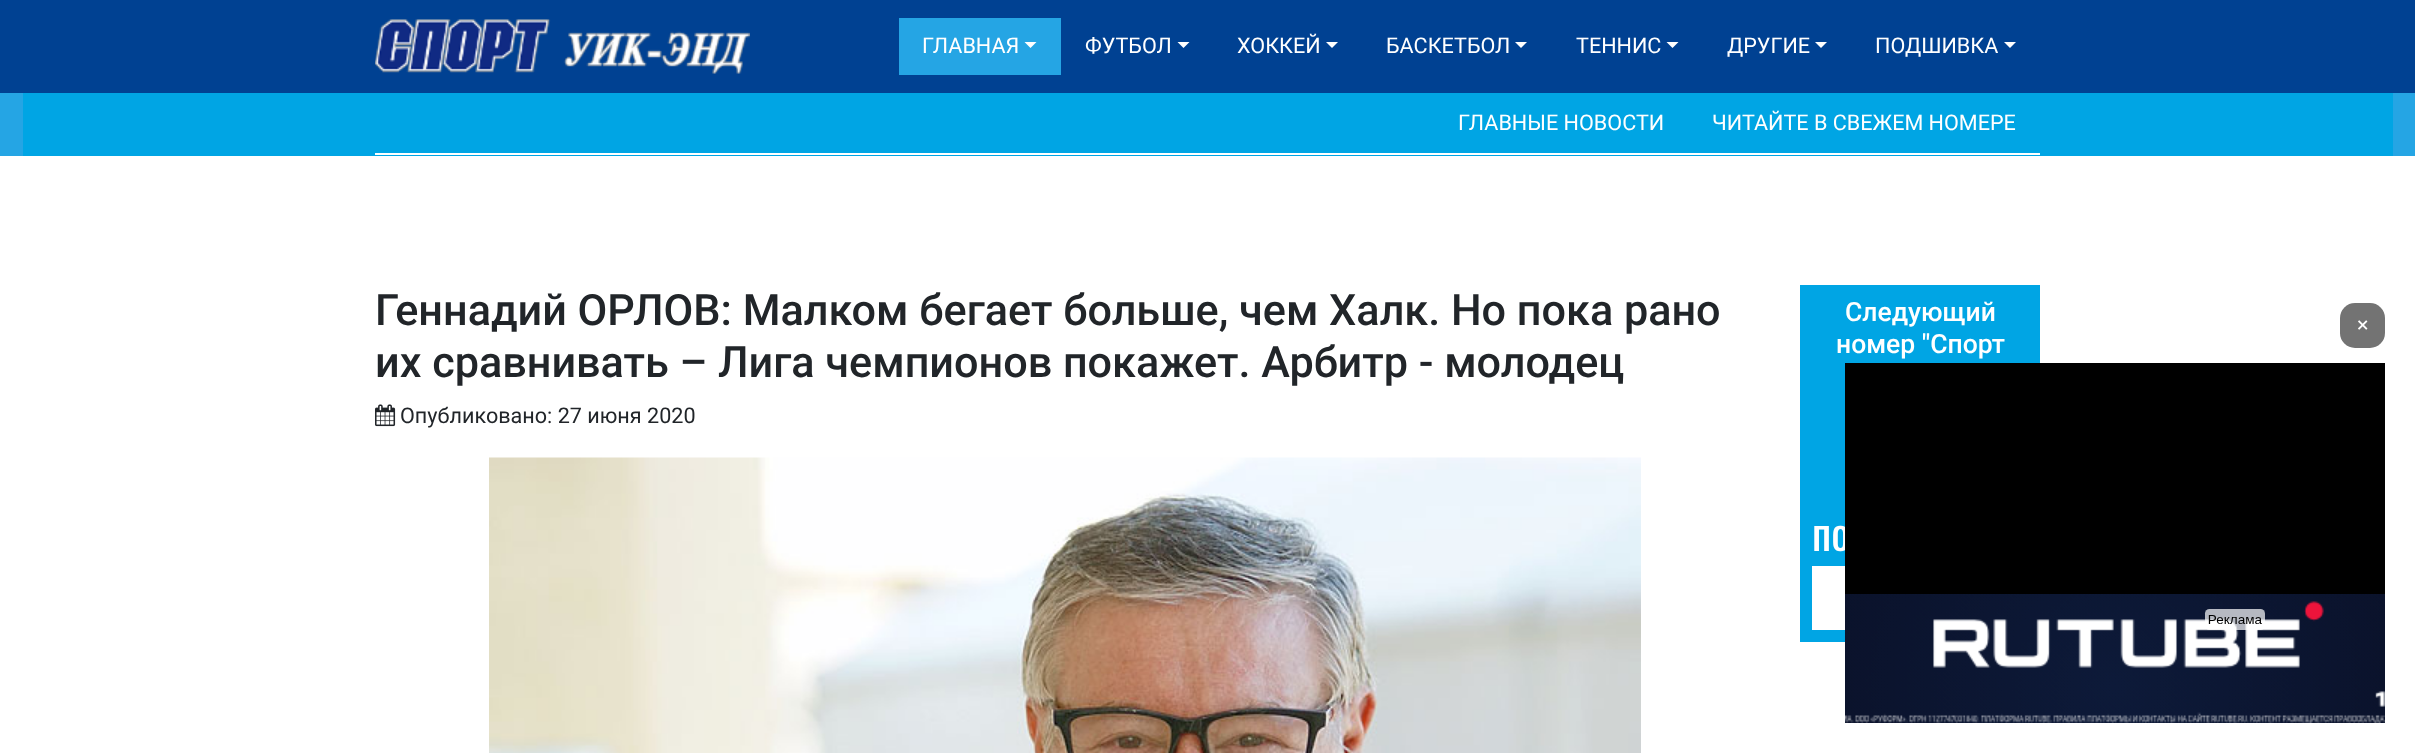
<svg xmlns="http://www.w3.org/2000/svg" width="2415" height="753">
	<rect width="100%" height="100%" fill="#FFFFFF" />
	<rect x="0" y="0" width="2415" height="93" fill="#004192" />
	<image x="375" y="19" width="375" height="55" href="assets/img1.png" />
	<rect x="899" y="18" width="162" height="57" fill="#25A5E4" />
	<text x="922" y="53" font-family="Roboto" font-size="21.6" fill="#FFFFFF">ГЛАВНАЯ</text>
	<path d="M1024.5 42H1036.5L1030.5 48Z" fill="#FFFFFF" />
	<text x="1085" y="53" font-family="Roboto" font-size="21.6" fill="#FFFFFF">ФУТБОЛ</text>
	<path d="M1177.5 42H1189.5L1183.5 48Z" fill="#FFFFFF" />
	<text x="1237" y="53" font-family="Roboto" font-size="21.6" fill="#FFFFFF">ХОККЕЙ</text>
	<path d="M1326 42H1338L1332 48Z" fill="#FFFFFF" />
	<text x="1386" y="53" font-family="Roboto" font-size="21.6" fill="#FFFFFF">БАСКЕТБОЛ</text>
	<path d="M1515 42H1527L1521 48Z" fill="#FFFFFF" />
	<text x="1576" y="53" font-family="Roboto" font-size="21.6" fill="#FFFFFF">ТЕННИС</text>
	<path d="M1666.5 42H1678.5L1672.5 48Z" fill="#FFFFFF" />
	<text x="1727" y="53" font-family="Roboto" font-size="21.6" fill="#FFFFFF">ДРУГИЕ</text>
	<path d="M1815 42H1827L1821 48Z" fill="#FFFFFF" />
	<text x="1875" y="53" font-family="Roboto" font-size="21.6" fill="#FFFFFF">ПОДШИВКА</text>
	<path d="M2004 42H2016L2010 48Z" fill="#FFFFFF" />
	<rect x="0" y="93" width="2415" height="63" fill="#25A5E4" />
	<rect x="23" y="93" width="2370" height="63" fill="#00A5E4" />
	<rect x="375" y="153" width="1665" height="2" fill="#FFFFFF" />
	<g font-family="Roboto" font-size="21.6" fill="#FFFFFF">
		<text x="1458" y="130">ГЛАВНЫЕ НОВОСТИ</text>
		<text x="1712" y="130">ЧИТАЙТЕ В СВЕЖЕМ НОМЕРЕ</text>
	</g>
	<g font-family="Roboto" font-size="43.2" font-weight="500" fill="#212529">
		<text x="375" y="325">Геннадий ОРЛОВ: Малком бегает больше, чем Халк. Но пока рано</text>
		<text x="375" y="377">их сравнивать – Лига чемпионов покажет. Арбитр - молодец</text>
	</g>
	<image x="375" y="404" width="21" height="23" href="assets/img2.png" />
	<text x="400" y="423" font-family="Roboto" font-size="21.6" fill="#212529">Опубликовано: 27 июня 2020</text>
	<image x="489" y="457" width="1152" height="296" href="assets/img3.png" />
	<rect x="1800" y="285" width="240" height="357" fill="#00A5E4" />
	<g font-family="Roboto" font-size="26.5" font-weight="500" fill="#FFFFFF">
		<text x="1845" y="321">Следующий</text>
		<text x="1836" y="353">номер "Спорт</text>
	</g>
	<text x="1812" y="551" font-family="Oswald" font-size="43.2" fill="#FFFFFF">по</text>
	<rect x="1812" y="566" width="33" height="64" fill="#FFFFFF" />
	<rect x="2340" y="303" width="45" height="45" rx="15" fill="#737373" />
	<text x="2357" y="332" font-family="Roboto" font-size="21.6" fill="#FFFFFF">×</text>
	<rect x="1845" y="363" width="540" height="231" fill="#000000" />
	<image x="1845" y="594" width="540" height="129" href="assets/img4.png" />
</svg>
